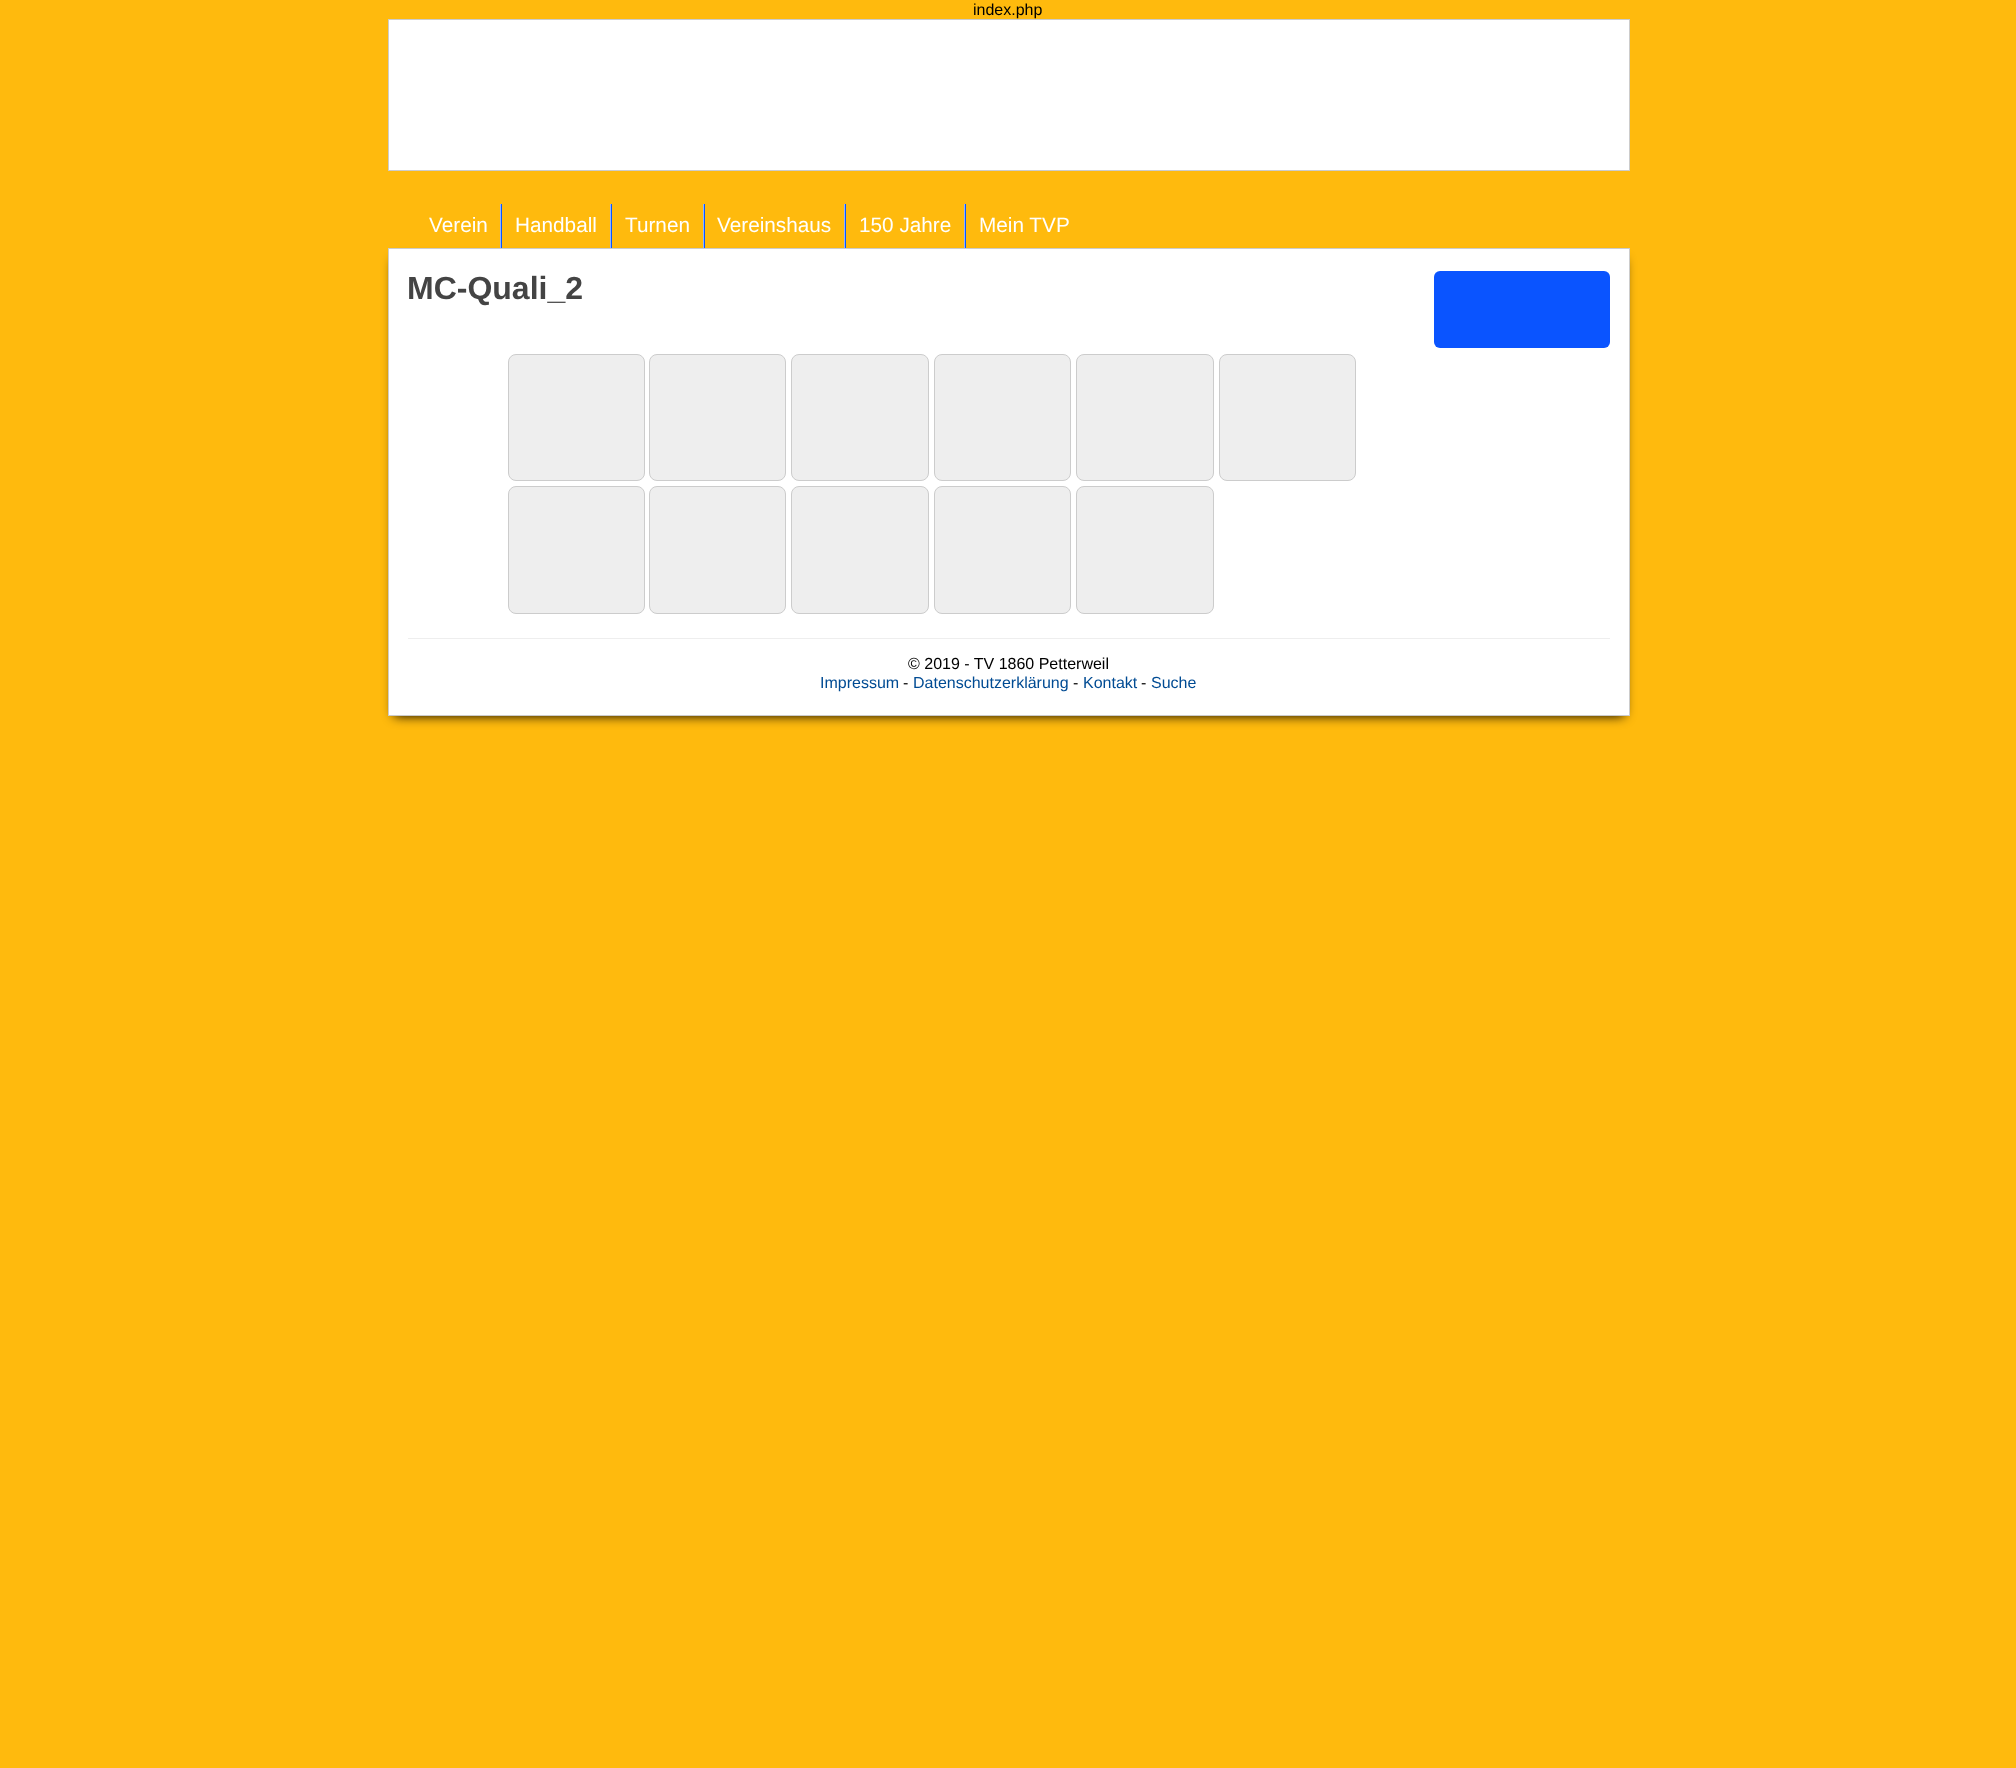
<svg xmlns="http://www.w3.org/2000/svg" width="2016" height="1768">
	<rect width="100%" height="100%" fill="#FFBA0D" />
	<text x="973" y="15" font-family="Liberation Sans" font-size="16" fill="#000000">index.php</text>
	<rect x="388.5" y="19.5" width="1241" height="151" fill="#FFFFFF" stroke="#CCCCCC" />
	<rect x="394" y="260" width="1230" height="456" fill="#000000" filter="blur(6px)" />
	<rect x="500" y="204" width="1" height="44" fill="#93B5FF" />
	<text x="429" y="232" font-family="Liberation Sans" font-size="20.75" fill="#FFFFFF">Verein</text>
	<rect x="610" y="204" width="1" height="44" fill="#93B5FF" />
	<rect x="501" y="204" width="1" height="44" fill="#0A54FF" />
	<text x="515" y="232" font-family="Liberation Sans" font-size="20.75" fill="#FFFFFF">Handball</text>
	<rect x="703" y="204" width="1" height="44" fill="#93B5FF" />
	<rect x="611" y="204" width="1" height="44" fill="#0A54FF" />
	<text x="625" y="232" font-family="Liberation Sans" font-size="20.75" fill="#FFFFFF">Turnen</text>
	<rect x="844" y="204" width="1" height="44" fill="#93B5FF" />
	<rect x="704" y="204" width="1" height="44" fill="#0A54FF" />
	<text x="717" y="232" font-family="Liberation Sans" font-size="20.75" fill="#FFFFFF">Vereinshaus</text>
	<rect x="964" y="204" width="1" height="44" fill="#93B5FF" />
	<rect x="845" y="204" width="1" height="44" fill="#0A54FF" />
	<text x="859" y="232" font-family="Liberation Sans" font-size="20.75" fill="#FFFFFF">150 Jahre</text>
	<rect x="965" y="204" width="1" height="44" fill="#0A54FF" />
	<text x="979" y="232" font-family="Liberation Sans" font-size="20.75" fill="#FFFFFF">Mein TVP</text>
	<rect x="388.5" y="248.5" width="1241" height="467" fill="#FFFFFF" stroke="#CCCCCC" />
	<text x="407" y="299" font-family="Liberation Sans" font-size="32" font-weight="700" fill="#444444">MC-Quali_2</text>
	<rect x="508.5" y="354.5" width="136" height="126" rx="7.5" fill="#EEEEEE" stroke="#CCCCCC" />
	<rect x="649.5" y="354.5" width="136" height="126" rx="7.5" fill="#EEEEEE" stroke="#CCCCCC" />
	<rect x="791.5" y="354.5" width="137" height="126" rx="7.5" fill="#EEEEEE" stroke="#CCCCCC" />
	<rect x="934.5" y="354.5" width="136" height="126" rx="7.5" fill="#EEEEEE" stroke="#CCCCCC" />
	<rect x="1076.5" y="354.5" width="137" height="126" rx="7.5" fill="#EEEEEE" stroke="#CCCCCC" />
	<rect x="1219.5" y="354.5" width="136" height="126" rx="7.5" fill="#EEEEEE" stroke="#CCCCCC" />
	<rect x="508.5" y="486.5" width="136" height="127" rx="7.5" fill="#EEEEEE" stroke="#CCCCCC" />
	<rect x="649.5" y="486.5" width="136" height="127" rx="7.5" fill="#EEEEEE" stroke="#CCCCCC" />
	<rect x="791.5" y="486.5" width="137" height="127" rx="7.5" fill="#EEEEEE" stroke="#CCCCCC" />
	<rect x="934.5" y="486.5" width="136" height="127" rx="7.5" fill="#EEEEEE" stroke="#CCCCCC" />
	<rect x="1076.5" y="486.5" width="137" height="127" rx="7.5" fill="#EEEEEE" stroke="#CCCCCC" />
	<rect x="1434" y="271" width="176" height="77" rx="6" fill="#0A54FF" />
	<rect x="408" y="638" width="1202" height="1" fill="#EEEEEE" />
	<text x="908" y="669" font-family="Liberation Sans" font-size="16" fill="#000000">© 2019 - TV 1860 Petterweil</text>
	<text x="820" y="688" font-family="Liberation Sans" font-size="16" fill="#004B93">Impressum</text>
	<text x="903" y="688" font-family="Liberation Sans" font-size="16" fill="#000000">-</text>
	<text x="913" y="688" font-family="Liberation Sans" font-size="16" fill="#004B93">Datenschutzerklärung</text>
	<text x="1073" y="688" font-family="Liberation Sans" font-size="16" fill="#000000">-</text>
	<text x="1083" y="688" font-family="Liberation Sans" font-size="16" fill="#004B93">Kontakt</text>
	<text x="1141" y="688" font-family="Liberation Sans" font-size="16" fill="#000000">-</text>
	<text x="1151" y="688" font-family="Liberation Sans" font-size="16" fill="#004B93">Suche</text>
</svg>
